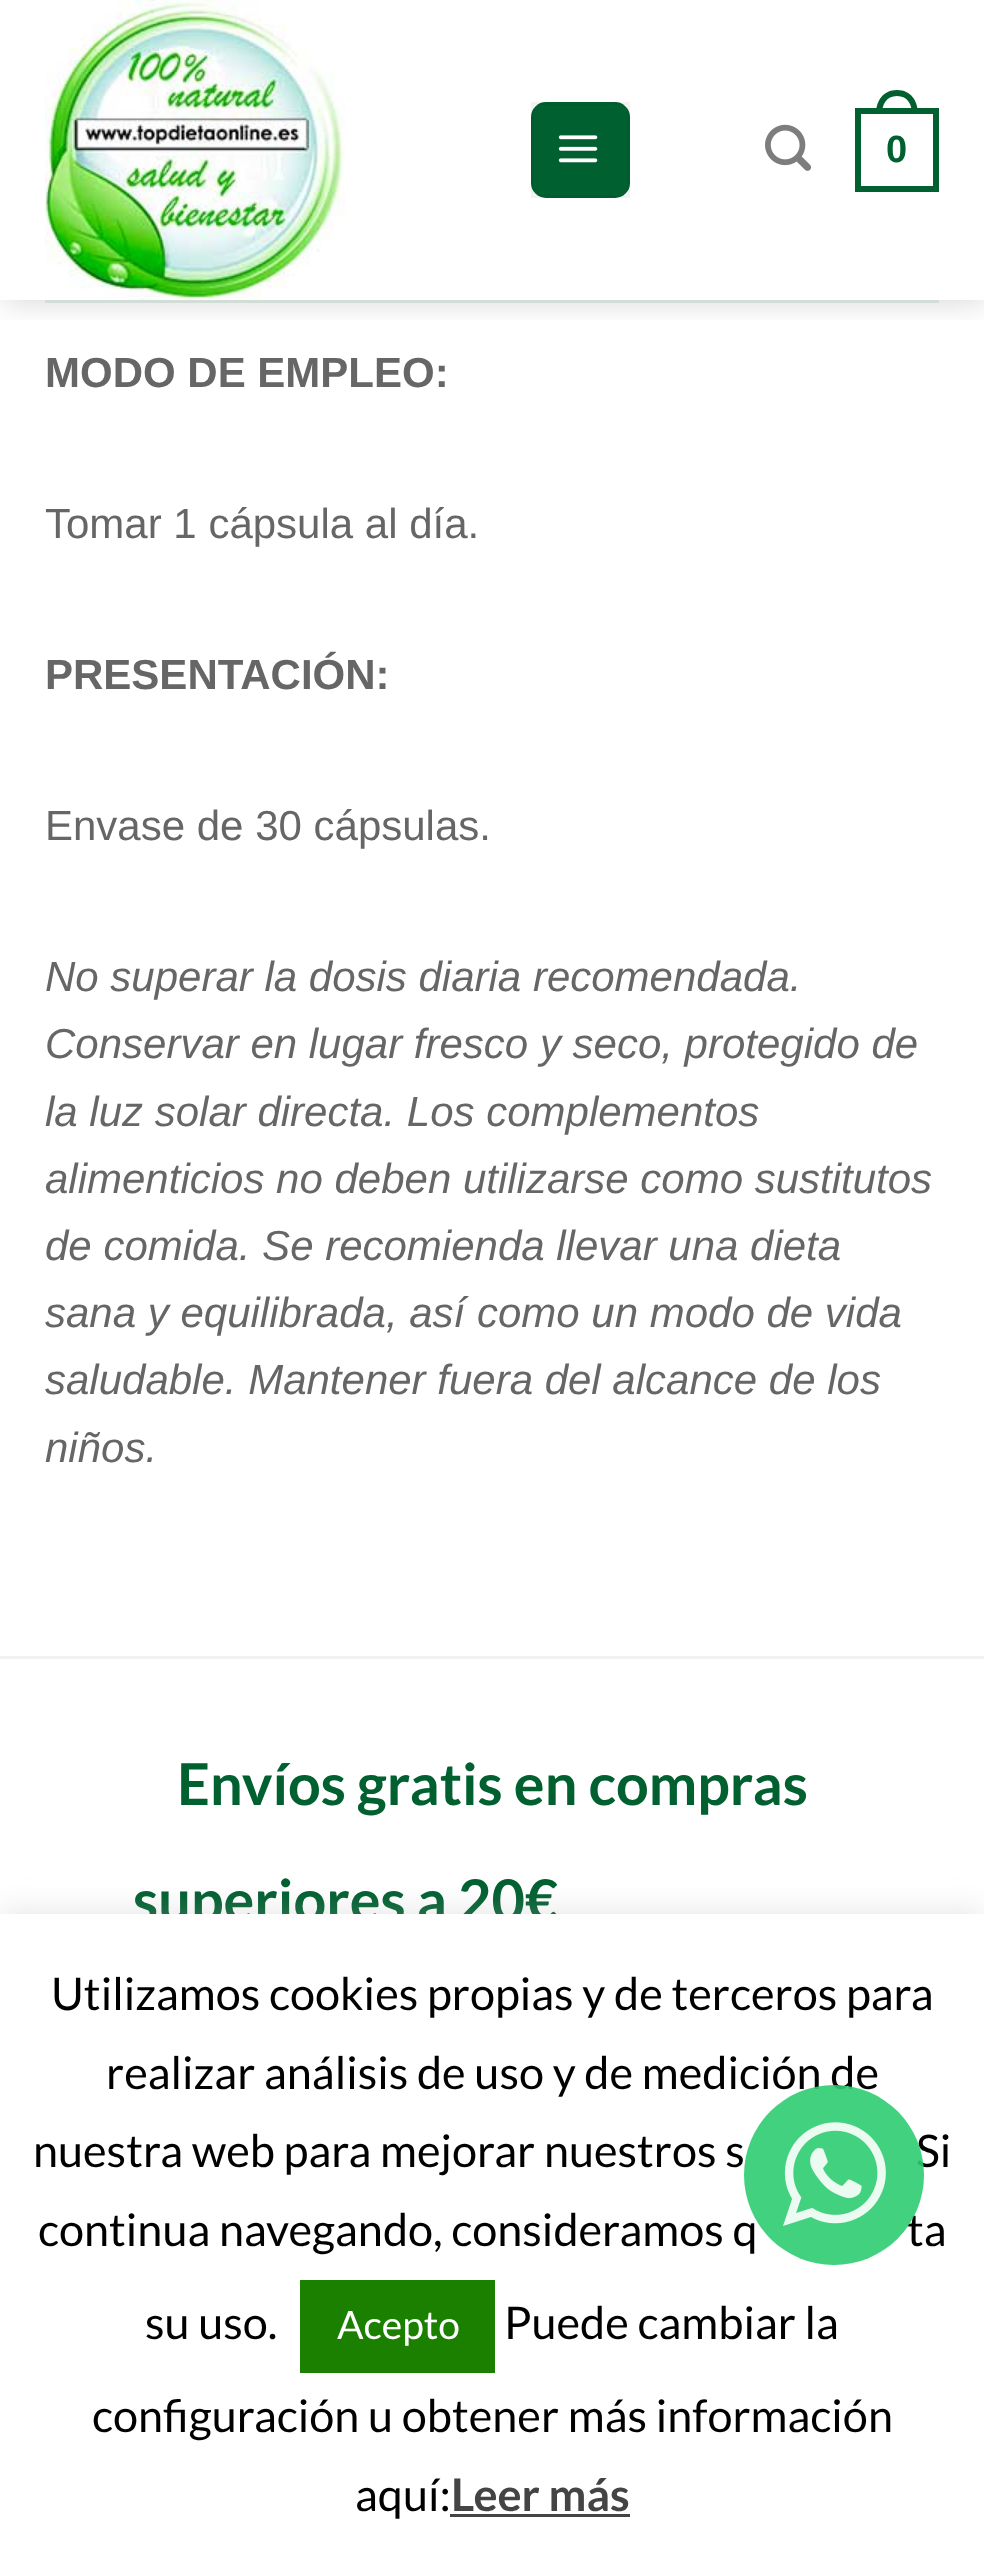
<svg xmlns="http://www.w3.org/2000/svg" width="984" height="2563">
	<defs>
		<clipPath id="clip1"><rect x="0" y="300" width="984" height="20" /></clipPath>
	</defs>
	<rect width="100%" height="100%" fill="#FFFFFF" />
	<g clip-path="url(#clip1)">
		<rect x="3" y="3" width="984" height="300" fill="#000000" fill-opacity="0.15" filter="blur(15px)" />
	</g>
	<image x="45" y="0" width="300" height="300" href="assets/img1.png" />
	<rect x="531" y="102" width="99" height="96" rx="15" fill="#006030" />
	<rect x="532.5" y="103.5" width="96" height="93" fill="none" stroke="#000000" stroke-opacity="0.05" stroke-width="3" />
	<image x="558" y="135" width="40" height="28" href="assets/img2.png" />
	<image x="765" y="124" width="47" height="47" href="assets/img3.png" />
	<rect x="858" y="111" width="78" height="78" fill="none" stroke="#006030" stroke-width="6" />
	<path d="M897 90C911 90 918 101 918 114H876C876 101 883 90 897 90ZM897 96C908 96 912 105 912 114H882C882 105 886 96 897 96Z" fill="#006030" fill-rule="evenodd" />
	<text x="886" y="162" font-family="Liberation Sans" font-size="38" font-weight="700" fill="#006030">0</text>
	<rect x="45" y="300" width="894" height="3" fill="#D3DDD8" />
	<text x="45" y="387" font-family="Liberation Sans" font-size="42" font-weight="700" fill="#666666">MODO DE EMPLEO:</text>
	<text x="45" y="538" font-family="Liberation Sans" font-size="42" fill="#666666">Tomar 1 cápsula al día.</text>
	<text x="45" y="689" font-family="Liberation Sans" font-size="42" font-weight="700" fill="#666666">PRESENTACIÓN:</text>
	<text x="45" y="840" font-family="Liberation Sans" font-size="42" fill="#666666">Envase de 30 cápsulas.</text>
	<g font-family="Liberation Sans" font-size="42" font-style="italic" fill="#666666">
		<text x="45" y="991">No superar la dosis diaria recomendada.</text>
		<text x="45" y="1058">Conservar en lugar fresco y seco, protegido de</text>
		<text x="45" y="1126">la luz solar directa. Los complementos</text>
		<text x="45" y="1193">alimenticios no deben utilizarse como sustitutos</text>
		<text x="45" y="1260">de comida. Se recomienda llevar una dieta</text>
		<text x="45" y="1327">sana y equilibrada, así como un modo de vida</text>
		<text x="45" y="1394">saludable. Mantener fuera del alcance de los</text>
		<text x="45" y="1462">niños.</text>
	</g>
	<rect x="0" y="1656" width="984" height="3" fill="#F2F2F2" />
	<g font-family="Lato" font-size="57.6" font-weight="700" fill="#006030">
		<text x="177" y="1805">Envíos gratis en compras</text>
		<text x="133" y="1921">superiores a 20€</text>
	</g>
	<rect x="0" y="1911" width="984" height="651" fill="#ACABAB" fill-opacity="0.3" filter="blur(15px)" />
	<rect x="0" y="1914" width="984" height="649" fill="#FFFFFF" />
	<g font-family="Lato" font-size="45" fill="#000000">
		<text x="51" y="2010">Utilizamos cookies propias y de terceros para</text>
		<text x="106" y="2089">realizar análisis de uso y de medición de</text>
		<text x="33" y="2167">nuestra web para mejorar nuestros s</text>
		<text x="916" y="2167">Si</text>
		<text x="38" y="2246">continua navegando, consideramos q</text>
		<text x="907" y="2246">ta</text>
		<text x="145" y="2339">su uso.</text>
	</g>
	<rect x="300" y="2280" width="195" height="93" fill="#1B7F00" />
	<text x="337" y="2339" font-family="Lato" font-size="39" fill="#FFFFFF">Acepto</text>
	<g font-family="Lato" font-size="45" fill="#000000">
		<text x="504" y="2339">Puede cambiar la</text>
		<text x="92" y="2432">configuración u obtener más información</text>
		<text x="355" y="2511">aquí:</text>
	</g>
	<text x="451" y="2511" font-family="Lato" font-size="45" font-weight="700" fill="#444444">Leer más</text>
	<rect x="450" y="2514" width="180" height="3" fill="#444444" />
	<circle cx="834" cy="2175" r="90" fill="#2ECC71" fill-opacity="0.9" />
	<image x="783" y="2122" width="103" height="104" href="assets/img4.png" />
</svg>
